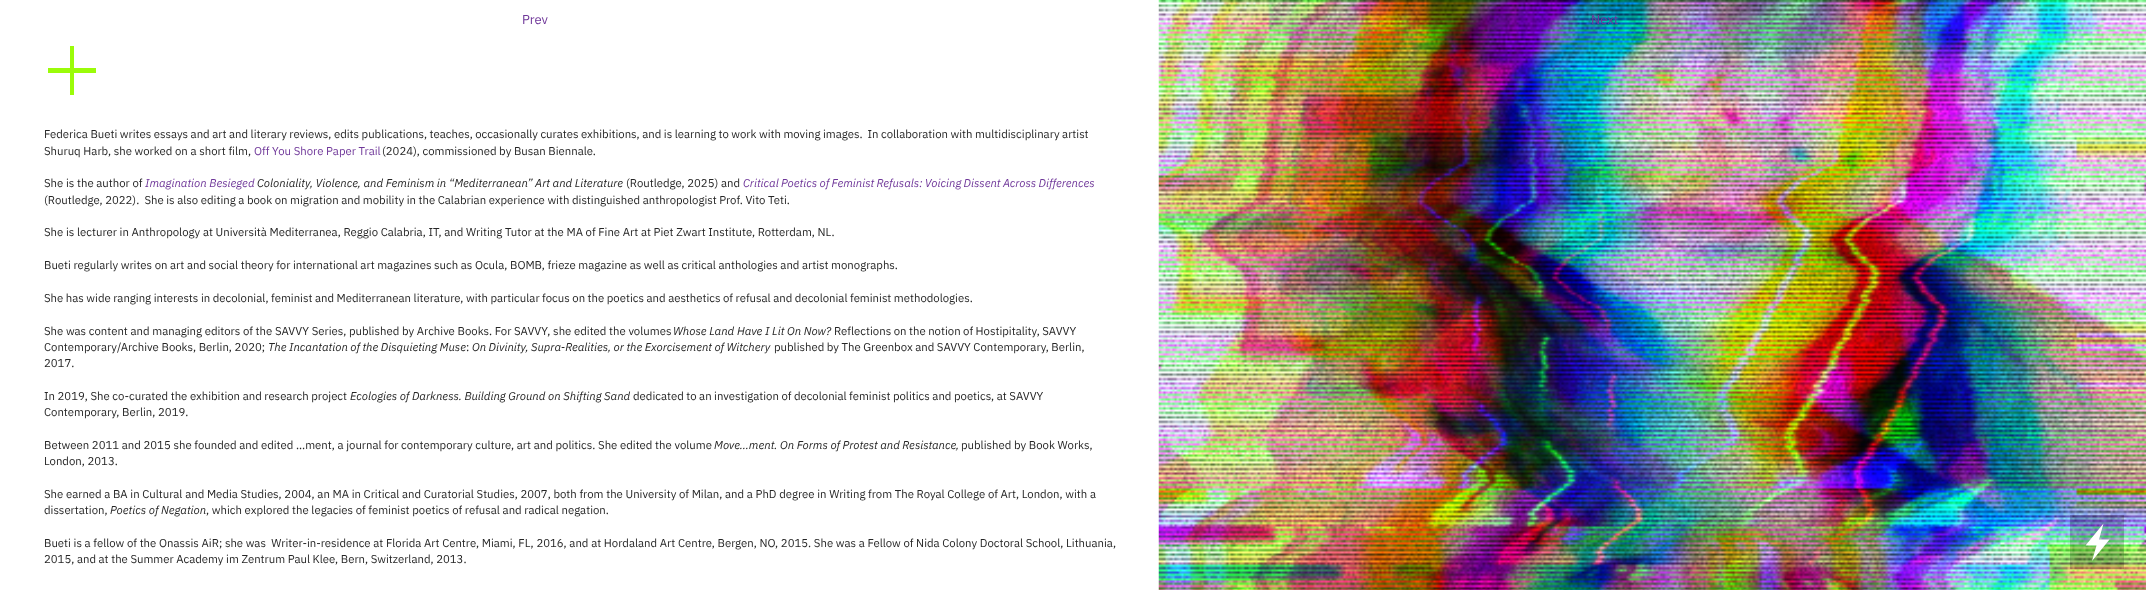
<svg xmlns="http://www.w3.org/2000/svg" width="2146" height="590">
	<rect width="100%" height="100%" fill="#FFFFFF" />
	<text x="522" y="24" font-family="IBM Plex Sans" font-size="13" fill="#6F3799">Prev</text>
	<image x="1158" y="0" width="988" height="590" href="assets/img1.png" />
	<text x="1591" y="24" font-family="IBM Plex Sans" font-size="13" fill="#6F3799">Next</text>
	<g font-family="IBM Plex Sans" font-size="11.35" fill="#262626">
		<text x="44" y="138" word-spacing="-0.15" xml:space="preserve">Federica Bueti writes essays and art and literary reviews, edits publications, teaches, occasionally curates exhibitions, and is learning to work with moving images.  In collaboration with multidisciplinary artist</text>
		<text x="44" y="155">Shuruq Harb, she worked on a short film,</text>
	</g>
	<text x="254" y="155" font-family="IBM Plex Sans" font-size="11.35" fill="#6F3799">Off You Shore Paper Trail</text>
	<g font-family="IBM Plex Sans" font-size="11.35" fill="#262626">
		<text x="382" y="155" word-spacing="-0.1">(2024), commissioned by Busan Biennale.</text>
		<text x="44" y="187">She is the author of</text>
	</g>
	<text x="145" y="187" font-family="IBM Plex Sans" font-size="11.35" font-style="italic" fill="#6F3799">Imagination Besieged</text>
	<text x="257" y="187" word-spacing="-0.1" font-family="IBM Plex Sans" font-size="11.35" font-style="italic" fill="#262626">Coloniality, Violence, and Feminism in “Mediterranean” Art and Literature</text>
	<text x="626" y="187" font-family="IBM Plex Sans" font-size="11.35" fill="#262626">(Routledge, 2025) and</text>
	<text x="743" y="187" word-spacing="-0.25" font-family="IBM Plex Sans" font-size="11.35" font-style="italic" fill="#6F3799">Critical Poetics of Feminist Refusals: Voicing Dissent Across Differences</text>
	<g font-family="IBM Plex Sans" font-size="11.35" fill="#262626">
		<text x="44" y="204" word-spacing="-0.1" xml:space="preserve">(Routledge, 2022).  She is also editing a book on migration and mobility in the Calabrian experience with distinguished anthropologist Prof. Vito Teti.</text>
		<text x="44" y="236">She is lecturer in Anthropology at Università Mediterranea, Reggio Calabria, IT, and Writing Tutor at the MA of Fine Art at Piet Zwart Institute, Rotterdam, NL.</text>
		<text x="44" y="269" word-spacing="-0.1">Bueti regularly writes on art and social theory for international art magazines such as Ocula, BOMB, frieze magazine as well as critical anthologies and artist monographs.</text>
		<text x="44" y="302" word-spacing="-0.15">She has wide ranging interests in decolonial, feminist and Mediterranean literature, with particular focus on the poetics and aesthetics of refusal and decolonial feminist methodologies.</text>
		<text x="44" y="335">She was content and managing editors of the SAVVY Series, published by Archive Books. For SAVVY, she edited the volumes</text>
	</g>
	<text x="673" y="335" font-family="IBM Plex Sans" font-size="11.35" font-style="italic" fill="#262626">Whose Land Have I Lit On Now?</text>
	<g font-family="IBM Plex Sans" font-size="11.35" fill="#262626">
		<text x="834" y="335" word-spacing="-0.15">Reflections on the notion of Hostipitality, SAVVY</text>
		<text x="44" y="351">Contemporary/Archive Books, Berlin, 2020;</text>
	</g>
	<text x="268" y="351" word-spacing="-0.15" font-family="IBM Plex Sans" font-size="11.35" font-style="italic" fill="#262626">The Incantation of the Disquieting Muse</text>
	<text x="466" y="351" font-family="IBM Plex Sans" font-size="11.35" fill="#262626">:</text>
	<text x="472" y="351" word-spacing="-0.25" font-family="IBM Plex Sans" font-size="11.35" font-style="italic" fill="#262626">On Divinity, Supra-Realities, or the Exorcisement of Witchery</text>
	<g font-family="IBM Plex Sans" font-size="11.35" fill="#262626">
		<text x="774" y="351" word-spacing="-0.15">published by The Greenbox and SAVVY Contemporary, Berlin,</text>
		<text x="44" y="367">2017.</text>
		<text x="44" y="400" word-spacing="-0.1">In 2019, She co-curated the exhibition and research project</text>
	</g>
	<text x="350" y="400" word-spacing="-0.1" font-family="IBM Plex Sans" font-size="11.35" font-style="italic" fill="#262626">Ecologies of Darkness. Building Ground on Shifting Sand</text>
	<g font-family="IBM Plex Sans" font-size="11.35" fill="#262626">
		<text x="633" y="400" word-spacing="-0.15">dedicated to an investigation of decolonial feminist politics and poetics, at SAVVY</text>
		<text x="44" y="416">Contemporary, Berlin, 2019.</text>
		<text x="44" y="449">Between 2011 and 2015 she founded and edited …ment, a journal for contemporary culture, art and politics. She edited the volume</text>
	</g>
	<text x="714" y="449" word-spacing="-0.1" font-family="IBM Plex Sans" font-size="11.35" font-style="italic" fill="#262626">Move…ment. On Forms of Protest and Resistance,</text>
	<g font-family="IBM Plex Sans" font-size="11.35" fill="#262626">
		<text x="961" y="449">published by Book Works,</text>
		<text x="44" y="465">London, 2013.</text>
		<text x="44" y="498">She earned a BA in Cultural and Media Studies, 2004, an MA in Critical and Curatorial Studies, 2007, both from the University of Milan, and a PhD degree in Writing from The Royal College of Art, London, with a</text>
		<text x="44" y="514">dissertation,</text>
	</g>
	<text x="110" y="514" font-family="IBM Plex Sans" font-size="11.35" font-style="italic" fill="#262626">Poetics of Negation</text>
	<g font-family="IBM Plex Sans" font-size="11.35" fill="#262626">
		<text x="206" y="514">, which explored the legacies of feminist poetics of refusal and radical negation.</text>
		<text x="44" y="547" xml:space="preserve">Bueti is a fellow of the Onassis AiR; she was  Writer-in-residence at Florida Art Centre, Miami, FL, 2016, and at Hordaland Art Centre, Bergen, NO, 2015. She was a Fellow of Nida Colony Doctoral School, Lithuania,</text>
		<text x="44" y="563" word-spacing="-0.1">2015, and at the Summer Academy im Zentrum Paul Klee, Bern, Switzerland, 2013.</text>
	</g>
	<path d="M74 68V46H70V68H48V73H70V95H74V73H96V68Z" fill="#9BFC09" />
	<rect x="2070" y="515" width="54" height="54" fill="#000000" fill-opacity="0.2" />
	<path d="M2109.5 539.5H2099L2103.5 523.5L2085.5 545.5H2096.5L2092 561Z" fill="#FFFFFF" />
</svg>
